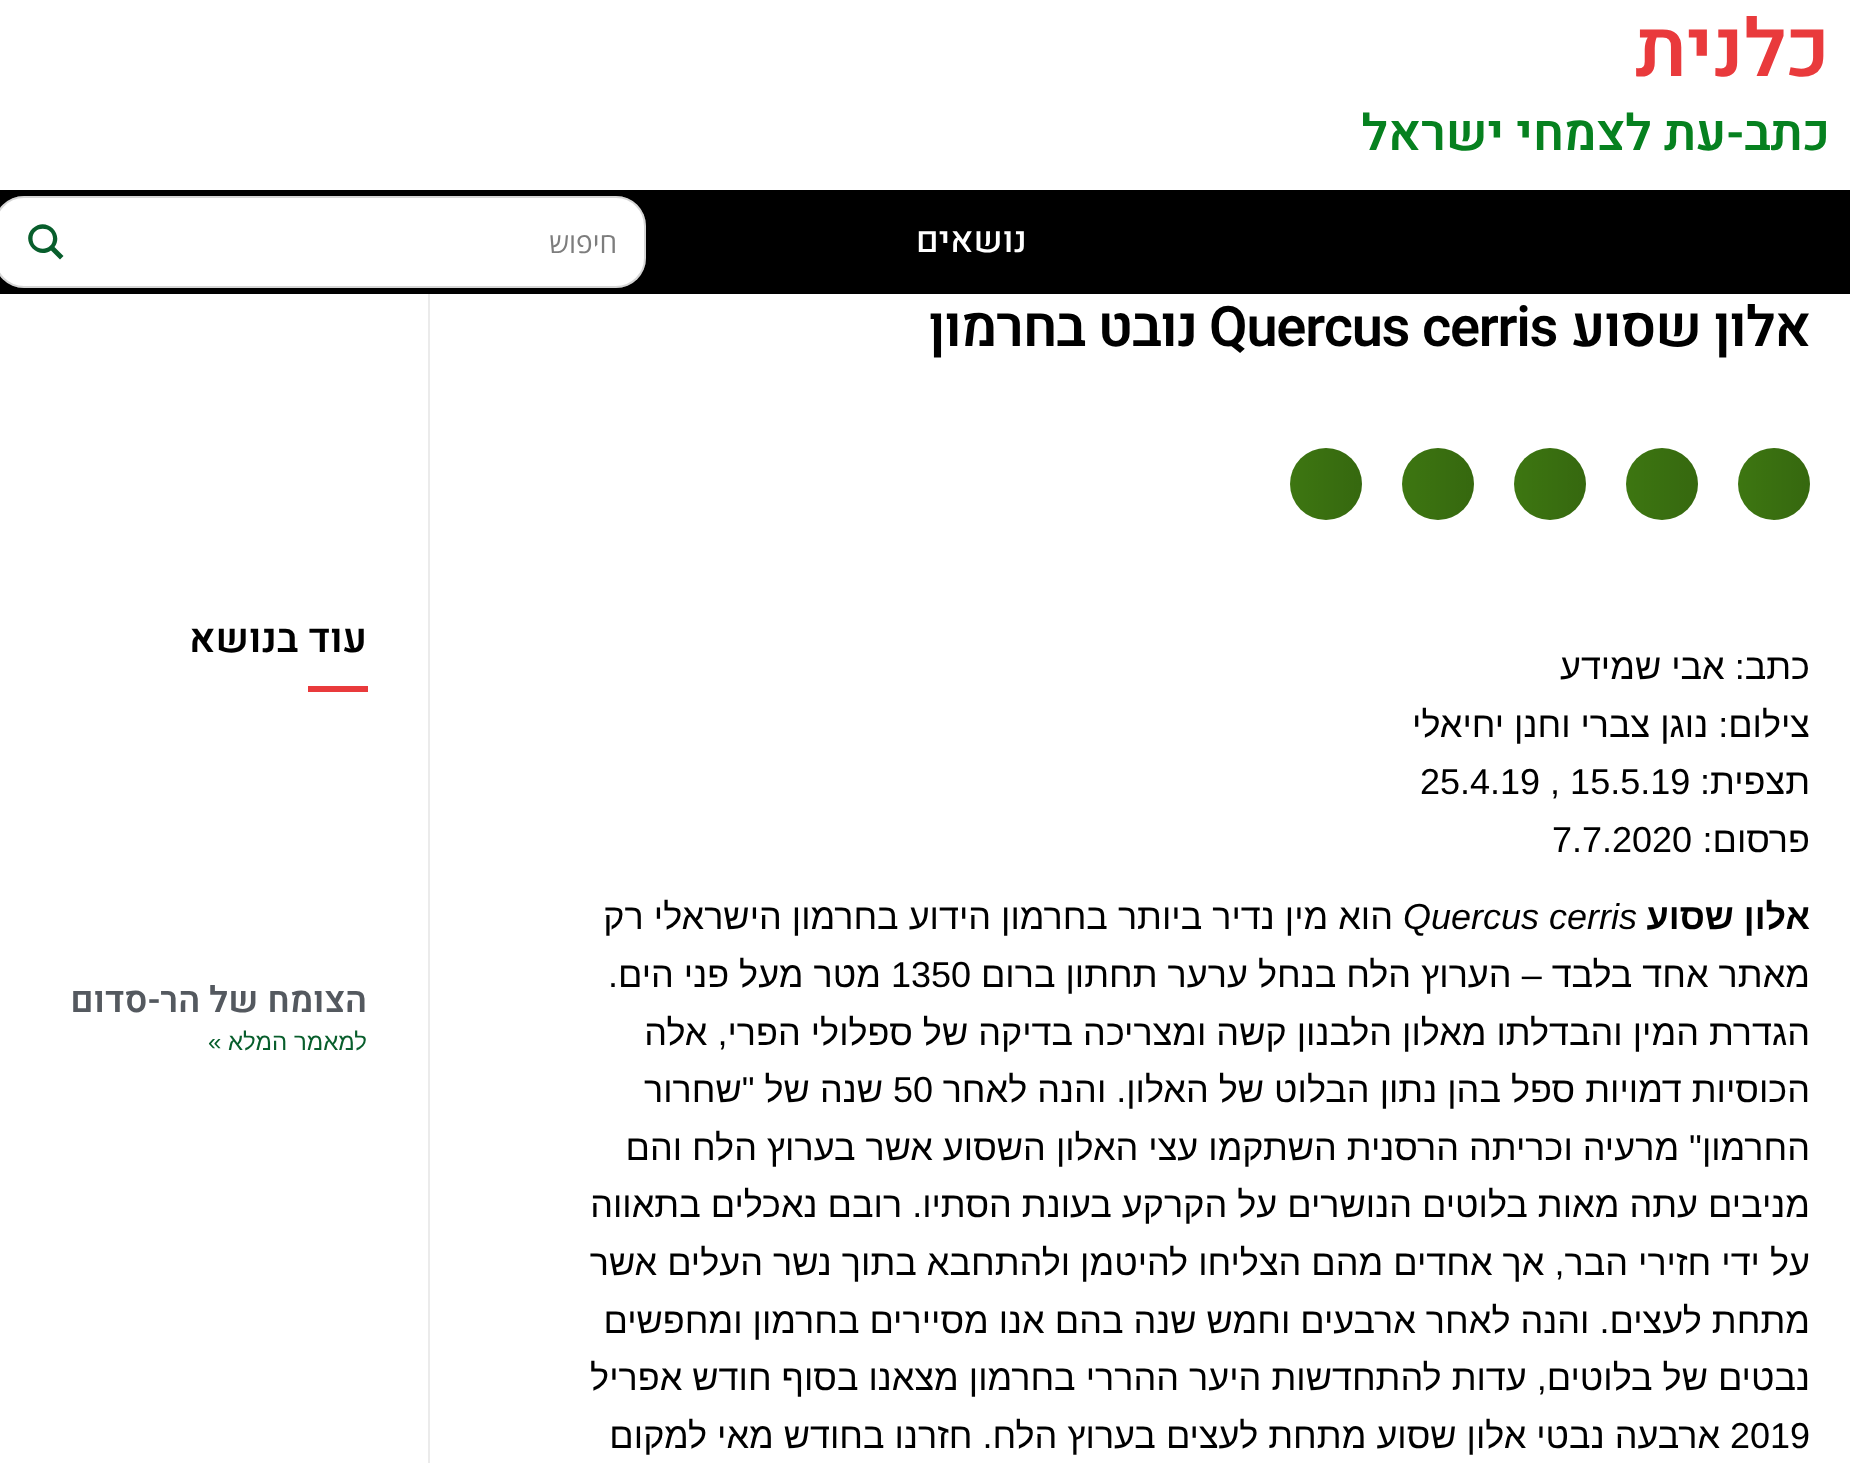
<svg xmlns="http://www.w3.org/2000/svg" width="1850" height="1463">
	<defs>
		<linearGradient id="g1" gradientUnits="userSpaceOnUse" x1="1810" y1="484" x2="1738" y2="484"><stop offset="0" stop-color="#000000" stop-opacity="0.12" /><stop offset="1" stop-color="#000000" stop-opacity="0" /></linearGradient>
		<linearGradient id="g2" gradientUnits="userSpaceOnUse" x1="1698" y1="484" x2="1626" y2="484"><stop offset="0" stop-color="#000000" stop-opacity="0.12" /><stop offset="1" stop-color="#000000" stop-opacity="0" /></linearGradient>
		<linearGradient id="g3" gradientUnits="userSpaceOnUse" x1="1586" y1="484" x2="1514" y2="484"><stop offset="0" stop-color="#000000" stop-opacity="0.12" /><stop offset="1" stop-color="#000000" stop-opacity="0" /></linearGradient>
		<linearGradient id="g4" gradientUnits="userSpaceOnUse" x1="1474" y1="484" x2="1402" y2="484"><stop offset="0" stop-color="#000000" stop-opacity="0.12" /><stop offset="1" stop-color="#000000" stop-opacity="0" /></linearGradient>
		<linearGradient id="g5" gradientUnits="userSpaceOnUse" x1="1362" y1="484" x2="1290" y2="484"><stop offset="0" stop-color="#000000" stop-opacity="0.12" /><stop offset="1" stop-color="#000000" stop-opacity="0" /></linearGradient>
	</defs>
	<rect width="100%" height="100%" fill="#FFFFFF" />
	<text x="1830" y="76" font-family="Heebo" font-size="80" font-weight="600" direction="rtl" fill="#E93A3C">כלנית</text>
	<text x="1830" y="150" font-family="Heebo" font-size="50" font-weight="600" direction="rtl" fill="#06811F">כתב-עת לצמחי ישראל</text>
	<rect x="0" y="190" width="1850" height="104" fill="#000000" />
	<text x="1027" y="252" font-family="Heebo" font-size="36" font-weight="500" direction="rtl" fill="#FFFFFF">נושאים</text>
	<rect x="-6" y="196" width="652" height="92" rx="30" fill="#FFFFFF" />
	<rect x="-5" y="197" width="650" height="90" rx="29" fill="none" stroke="#7A7A7A" stroke-opacity="0.31" stroke-width="2" />
	<text x="617" y="253" font-family="Open Sans" font-size="28" direction="rtl" fill="#7D7D7D">חיפוש</text>
	<path d="M63.5 256L54.5 247C64.5 233 45.5 216 32.5 228.5C20 241 37 260 51 250.5L60 259.5ZM32.5 238.5C32.5 225.5 53 225.5 53 238.5C53 252 32.5 252 32.5 238.5Z" fill="#085E2C" />
	<text x="1810" y="346" font-family="Heebo" font-size="56" font-weight="600" letter-spacing="-1.25" direction="rtl" fill="#000000">אלון שסוע</text>
	<text x="1209" y="346" font-family="Heebo" font-size="56" font-weight="600" letter-spacing="-1.25" fill="#000000">Quercus cerris</text>
	<text x="1197" y="346" font-family="Heebo" font-size="56" font-weight="600" letter-spacing="-1.25" direction="rtl" fill="#000000">נובט בחרמון</text>
	<circle cx="1774" cy="484" r="36" fill="#3D7611" />
	<circle cx="1774" cy="484" r="36" fill="url(#g1)" />
	<circle cx="1662" cy="484" r="36" fill="#3D7611" />
	<circle cx="1662" cy="484" r="36" fill="url(#g2)" />
	<circle cx="1550" cy="484" r="36" fill="#3D7611" />
	<circle cx="1550" cy="484" r="36" fill="url(#g3)" />
	<circle cx="1438" cy="484" r="36" fill="#3D7611" />
	<circle cx="1438" cy="484" r="36" fill="url(#g4)" />
	<circle cx="1326" cy="484" r="36" fill="#3D7611" />
	<circle cx="1326" cy="484" r="36" fill="url(#g5)" />
	<g font-family="Liberation Sans" font-size="36" direction="rtl" fill="#000000">
		<text x="1810" y="679">כתב: אבי שמידע</text>
		<text x="1810" y="737">צילום: נוגן צברי וחנן יחיאלי</text>
		<text x="1810" y="794">תצפית:</text>
	</g>
	<text x="1420" y="794" font-family="Liberation Sans" font-size="36" fill="#000000">25.4.19 , 15.5.19</text>
	<text x="1810" y="852" font-family="Liberation Sans" font-size="36" direction="rtl" fill="#000000">פרסום:</text>
	<text x="1552" y="852" font-family="Liberation Sans" font-size="36" fill="#000000">7.7.2020</text>
	<text x="1810" y="929" font-family="Liberation Sans" font-size="36" font-weight="700" direction="rtl" fill="#000000">אלון שסוע</text>
	<text x="1403" y="929" font-family="Liberation Sans" font-size="36" font-style="italic" fill="#000000">Quercus cerris</text>
	<g font-family="Liberation Sans" font-size="36" direction="rtl" fill="#000000">
		<text x="1393" y="929">הוא מין נדיר ביותר בחרמון הידוע בחרמון הישראלי רק</text>
		<text x="1810" y="987">מאתר אחד בלבד – הערוץ הלח בנחל ערער תחתון ברום</text>
	</g>
	<text x="891" y="987" font-family="Liberation Sans" font-size="36" fill="#000000">1350</text>
	<g font-family="Liberation Sans" font-size="36" direction="rtl" fill="#000000">
		<text x="881" y="987">מטר מעל פני הים.</text>
		<text x="1810" y="1045">הגדרת המין והבדלתו מאלון הלבנון קשה ומצריכה בדיקה של ספלולי הפרי, אלה</text>
		<text x="1810" y="1102">הכוסיות דמויות ספל בהן נתון הבלוט של האלון. והנה לאחר</text>
	</g>
	<text x="893" y="1102" font-family="Liberation Sans" font-size="36" fill="#000000">50</text>
	<g font-family="Liberation Sans" font-size="36" direction="rtl" fill="#000000">
		<text x="883" y="1102">שנה של "שחרור</text>
		<text x="1810" y="1160">החרמון" מרעיה וכריתה הרסנית השתקמו עצי האלון השסוע אשר בערוץ הלח והם</text>
		<text x="1810" y="1217">מניבים עתה מאות בלוטים הנושרים על הקרקע בעונת הסתיו. רובם נאכלים בתאווה</text>
		<text x="1810" y="1275">על ידי חזירי הבר, אך אחדים מהם הצליחו להיטמן ולהתחבא בתוך נשר העלים אשר</text>
		<text x="1810" y="1333">מתחת לעצים. והנה לאחר ארבעים וחמש שנה בהם אנו מסיירים בחרמון ומחפשים</text>
		<text x="1810" y="1390">נבטים של בלוטים, עדות להתחדשות היער ההררי בחרמון מצאנו בסוף חודש אפריל</text>
	</g>
	<text x="1730" y="1448" font-family="Liberation Sans" font-size="36" fill="#000000">2019</text>
	<text x="1720" y="1448" font-family="Liberation Sans" font-size="36" direction="rtl" fill="#000000">ארבעה נבטי אלון שסוע מתחת לעצים בערוץ הלח. חזרנו בחודש מאי למקום</text>
	<rect x="428" y="294" width="2" height="1169" fill="#EBEBEB" />
	<text x="367" y="652" font-family="Heebo" font-size="40" font-weight="600" direction="rtl" fill="#000000">עוד בנושא</text>
	<rect x="308" y="686" width="60" height="6" fill="#E93A3C" />
	<text x="367" y="1012" font-family="Heebo" font-size="36" font-weight="600" direction="rtl" fill="#54595F">הצומח של הר-סדום</text>
	<text x="367" y="1050" font-family="Liberation Sans" font-size="24" direction="rtl" fill="#085E2C">למאמר המלא »</text>
</svg>
